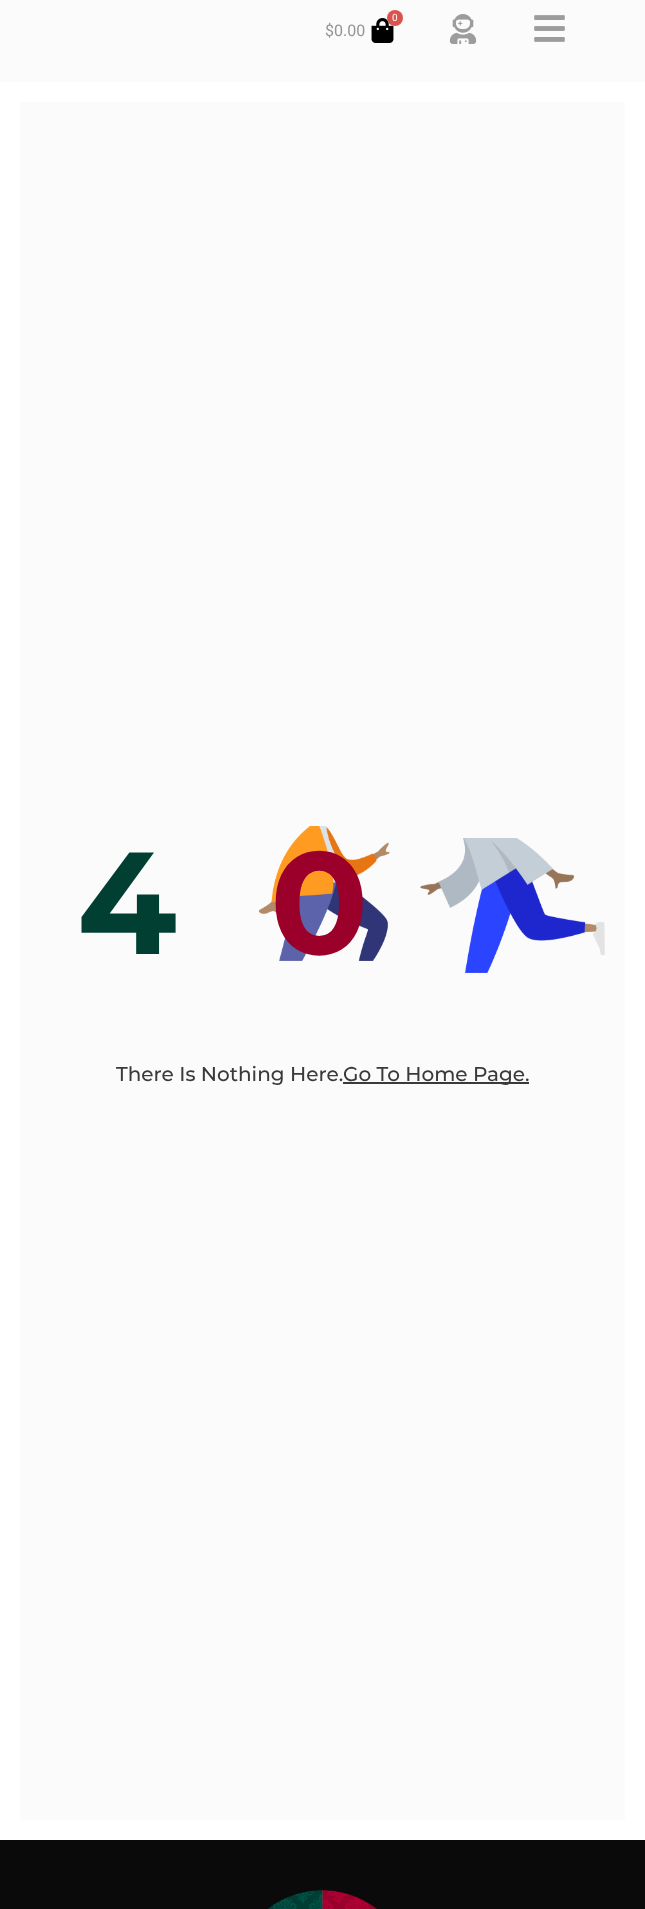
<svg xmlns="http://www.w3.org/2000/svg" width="645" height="1909">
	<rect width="100%" height="100%" fill="#FBFBFB" />
	<image x="371" y="18" width="23" height="25" href="assets/img1.png" />
	<circle cx="395" cy="18" r="8" fill="#D9534F" />
	<text x="392" y="21" font-family="Roboto" font-size="10" fill="#FFFFFF">0</text>
	<text x="325" y="36" font-family="Roboto" font-size="16" fill="#949494">$0.00</text>
	<image x="449" y="14" width="28" height="30" href="assets/img2.png" />
	<image x="534" y="15" width="31" height="27" href="assets/img3.png" />
	<rect x="10" y="92" width="625" height="1738" fill="none" stroke="#FFFFFF" stroke-width="20" />
	<image x="258" y="826" width="132" height="135" href="assets/img4.png" />
	<image x="420" y="838" width="185" height="135" href="assets/img5.png" />
	<text x="77" y="954" font-family="Montserrat" font-size="145" font-weight="700" fill="#013F32">4</text>
	<text x="270" y="954" font-family="Montserrat" font-size="145" font-weight="700" fill="#9B002A">0</text>
	<text x="116" y="1081" font-family="Montserrat" font-size="20" font-weight="500" fill="#3A3A3A">There Is Nothing Here.</text>
	<rect x="343" y="1082" width="186" height="2" fill="#3A3A3A" />
	<text x="343" y="1081" font-family="Montserrat" font-size="20" font-weight="500" fill="#3A3A3A">Go To Home Page.</text>
	<rect x="0" y="1840" width="645" height="69" fill="#0A0A0A" />
	<image x="267" y="1890" width="110" height="19" href="assets/img6.png" />
</svg>
